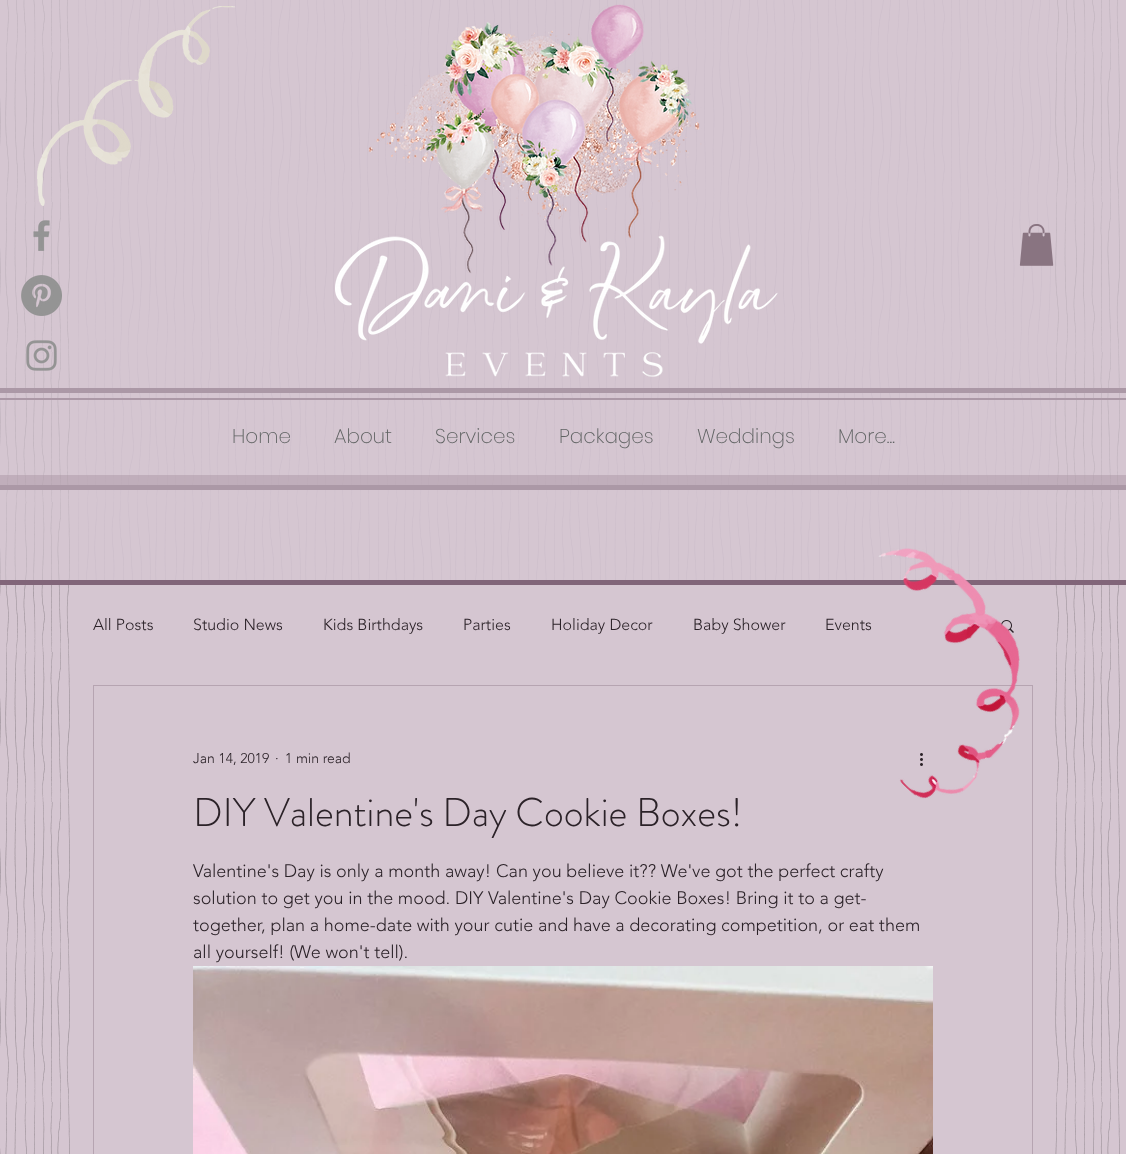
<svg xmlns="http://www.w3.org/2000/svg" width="1126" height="1154">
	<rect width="100%" height="100%" fill="#D5C6D1" />
	<image x="0" y="0" width="1120" height="1154" href="assets/img1.png" />
	<rect x="0" y="0" width="1120" height="580" fill="#D5C6D1" fill-opacity="0.63" />
	<rect x="0" y="580" width="1126" height="5" fill="#816579" />
	<rect x="78" y="0" width="973" height="580" fill="#D5C6D1" fill-opacity="0.66" />
	<image x="37" y="6" width="198" height="200" href="assets/img2.png" />
	<image x="335" y="4" width="443" height="373" href="assets/img3.png" />
	<image x="33" y="220" width="17" height="31" href="assets/img4.png" />
	<image x="21" y="275" width="41" height="41" href="assets/img5.png" />
	<image x="26" y="340" width="31" height="31" href="assets/img6.png" />
	<image x="1019" y="224" width="35" height="42" href="assets/img7.png" />
	<rect x="0" y="388" width="1126" height="5" fill="#AB98A6" />
	<rect x="0" y="398" width="1126" height="2" fill="#AB98A6" />
	<g font-family="Poppins" font-size="20" font-weight="200" fill="#606363">
		<text x="232" y="443">Home</text>
		<text x="334" y="443">About</text>
		<text x="435" y="443">Services</text>
		<text x="559" y="443">Packages</text>
		<text x="697" y="443">Weddings</text>
		<text x="838" y="443">More...</text>
	</g>
	<rect x="0" y="475" width="1126" height="10" fill="#AB98A6" fill-opacity="0.29" />
	<rect x="0" y="475" width="1126" height="10" fill="#AB98A6" fill-opacity="0.29" />
	<rect x="0" y="485" width="1126" height="5" fill="#AB98A6" />
	<rect x="78" y="585" width="973" height="569" fill="#D5C6D1" />
	<g font-family="'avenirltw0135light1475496'" font-size="16" font-weight="300" fill="#2B2228">
		<text x="93" y="630">All Posts</text>
		<text x="193" y="630">Studio News</text>
		<text x="323" y="630">Kids Birthdays</text>
		<text x="463" y="630">Parties</text>
		<text x="551" y="630">Holiday Decor</text>
		<text x="693" y="630">Baby Shower</text>
		<text x="825" y="630">Events</text>
	</g>
	<image x="1001" y="620" width="13" height="13" href="assets/img8.png" />
	<rect x="93.5" y="685.5" width="939" height="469" fill="none" stroke="#B6A4B1" />
	<g font-family="'avenirltw0135light1475496'" font-size="14" font-weight="300" fill="#2B2228">
		<text x="193" y="763">Jan 14, 2019</text>
		<text x="275" y="763">·</text>
		<text x="285" y="763">1 min read</text>
	</g>
	<image x="920" y="753" width="3" height="13" href="assets/img9.png" />
	<text x="193" y="826" font-family="'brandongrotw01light'" font-size="40" font-weight="300" fill="#2B2228">DIY Valentine's Day Cookie Boxes!</text>
	<g font-family="'avenirltw0135light1475496'" font-size="18" font-weight="300" fill="#2B2228">
		<text x="193" y="877">Valentine's Day is only a month away! Can you believe it?? We've got the perfect crafty</text>
		<text x="193" y="904">solution to get you in the mood. DIY Valentine's Day Cookie Boxes! Bring it to a get-</text>
		<text x="193" y="931">together, plan a home-date with your cutie and have a decorating competition, or eat them</text>
		<text x="193" y="958">all yourself! (We won't tell).</text>
	</g>
	<image x="193" y="966" width="740" height="188" href="assets/img10.png" />
	<image x="878" y="548" width="142" height="251" href="assets/img11.png" />
</svg>
